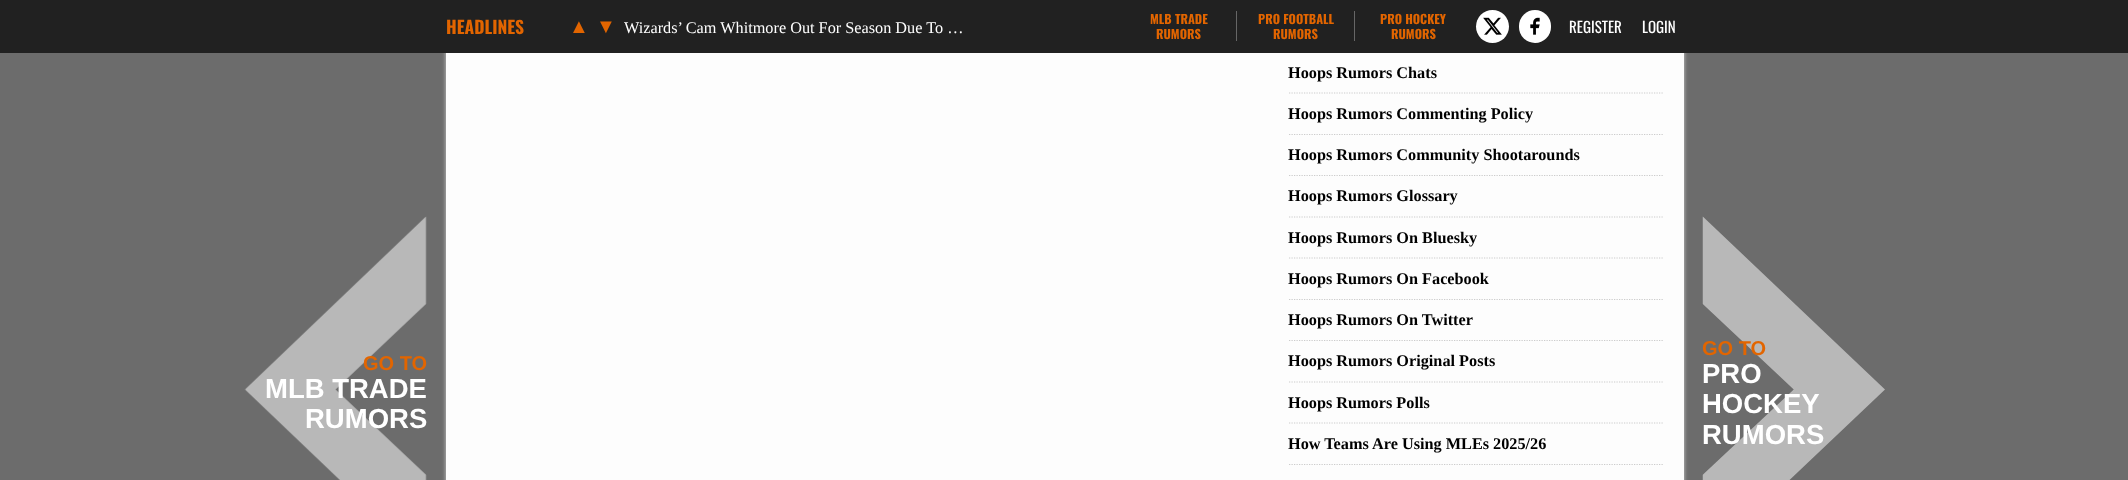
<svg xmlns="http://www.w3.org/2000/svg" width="2128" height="480">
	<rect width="100%" height="100%" fill="#6C6C6C" />
	<rect x="446" y="-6" width="1238" height="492" fill="#CCCCCC" filter="blur(2px)" />
	<rect x="0" y="0" width="2128" height="53" fill="#212121" />
	<text x="446" y="34" font-family="Oswald" font-size="17.5" font-weight="700" fill="#E26500">HEADLINES</text>
	<g font-family="Liberation Sans" font-size="20" fill="#E26500">
		<text x="569" y="33">▲</text>
		<text x="596" y="33">▼</text>
	</g>
	<text x="624" y="33" font-family="Liberation Serif" font-size="16.25" fill="#FFFFFF">Wizards’ Cam Whitmore Out For Season Due To …</text>
	<rect x="1236" y="11" width="1" height="30" fill="#666666" />
	<g font-family="Oswald" font-size="12.5" font-weight="700" fill="#E26500">
		<text x="1150" y="24">MLB TRADE</text>
		<text x="1156" y="39">RUMORS</text>
	</g>
	<rect x="1354" y="11" width="1" height="30" fill="#666666" />
	<g font-family="Oswald" font-size="12.5" font-weight="700" fill="#E26500">
		<text x="1258" y="24">PRO FOOTBALL</text>
		<text x="1273" y="39">RUMORS</text>
		<text x="1380" y="24">PRO HOCKEY</text>
		<text x="1391" y="39">RUMORS</text>
	</g>
	<circle cx="1492.5" cy="26.5" r="16.5" fill="#FFFFFF" />
	<image x="1483" y="17" width="19" height="18" href="assets/img1.png" />
	<rect x="1519" y="10" width="32" height="33" rx="16" fill="#FFFFFF" />
	<image x="1530" y="17" width="10" height="18" href="assets/img2.png" />
	<g font-family="Oswald" font-size="15" fill="#FFFFFF">
		<text x="1569" y="33">REGISTER</text>
		<text x="1642" y="33">LOGIN</text>
	</g>
	<image x="244" y="216" width="183" height="264" href="assets/img3.png" />
	<text x="363" y="370" font-family="Liberation Sans" font-size="20" font-weight="700" fill="#E26500">GO TO</text>
	<g font-family="Liberation Sans" font-size="27.5" font-weight="700" fill="#FFFFFF">
		<text x="265" y="398">MLB TRADE</text>
		<text x="305" y="428">RUMORS</text>
	</g>
	<rect x="446" y="53" width="1238" height="427" fill="#FDFDFD" />
	<path d="M1289 93H1664" fill="none" stroke="#CCCCCC" stroke-width="1.2" stroke-dasharray="1.25 1.25" />
	<text x="1288" y="78" font-family="Liberation Serif" font-size="16.25" font-weight="700" fill="#000000">Hoops Rumors Chats</text>
	<path d="M1289 134.5H1664" fill="none" stroke="#CCCCCC" stroke-width="1.2" stroke-dasharray="1.25 1.25" />
	<text x="1288" y="119" font-family="Liberation Serif" font-size="16.25" font-weight="700" fill="#000000">Hoops Rumors Commenting Policy</text>
	<path d="M1289 175.5H1664" fill="none" stroke="#CCCCCC" stroke-width="1.2" stroke-dasharray="1.25 1.25" />
	<text x="1288" y="160" font-family="Liberation Serif" font-size="16.25" font-weight="700" fill="#000000">Hoops Rumors Community Shootarounds</text>
	<path d="M1289 217H1664" fill="none" stroke="#CCCCCC" stroke-width="1.2" stroke-dasharray="1.25 1.25" />
	<text x="1288" y="201" font-family="Liberation Serif" font-size="16.25" font-weight="700" fill="#000000">Hoops Rumors Glossary</text>
	<path d="M1289 258H1664" fill="none" stroke="#CCCCCC" stroke-width="1.2" stroke-dasharray="1.25 1.25" />
	<text x="1288" y="243" font-family="Liberation Serif" font-size="16.25" font-weight="700" fill="#000000">Hoops Rumors On Bluesky</text>
	<path d="M1289 299.5H1664" fill="none" stroke="#CCCCCC" stroke-width="1.2" stroke-dasharray="1.25 1.25" />
	<text x="1288" y="284" font-family="Liberation Serif" font-size="16.25" font-weight="700" fill="#000000">Hoops Rumors On Facebook</text>
	<path d="M1289 340.5H1664" fill="none" stroke="#CCCCCC" stroke-width="1.2" stroke-dasharray="1.25 1.25" />
	<text x="1288" y="325" font-family="Liberation Serif" font-size="16.25" font-weight="700" fill="#000000">Hoops Rumors On Twitter</text>
	<path d="M1289 382H1664" fill="none" stroke="#CCCCCC" stroke-width="1.2" stroke-dasharray="1.25 1.25" />
	<text x="1288" y="366" font-family="Liberation Serif" font-size="16.25" font-weight="700" fill="#000000">Hoops Rumors Original Posts</text>
	<path d="M1289 423H1664" fill="none" stroke="#CCCCCC" stroke-width="1.2" stroke-dasharray="1.25 1.25" />
	<text x="1288" y="408" font-family="Liberation Serif" font-size="16.25" font-weight="700" fill="#000000">Hoops Rumors Polls</text>
	<path d="M1289 464.5H1664" fill="none" stroke="#CCCCCC" stroke-width="1.2" stroke-dasharray="1.25 1.25" />
	<text x="1288" y="449" font-family="Liberation Serif" font-size="16.25" font-weight="700" fill="#000000">How Teams Are Using MLEs 2025/26</text>
	<image x="1702" y="216" width="183" height="264" href="assets/img4.png" />
	<text x="1702" y="355" font-family="Liberation Sans" font-size="20" font-weight="700" fill="#E26500">GO TO</text>
	<g font-family="Liberation Sans" font-size="27.5" font-weight="700" fill="#FFFFFF">
		<text x="1702" y="383">PRO</text>
		<text x="1702" y="413">HOCKEY</text>
		<text x="1702" y="444">RUMORS</text>
	</g>
</svg>
